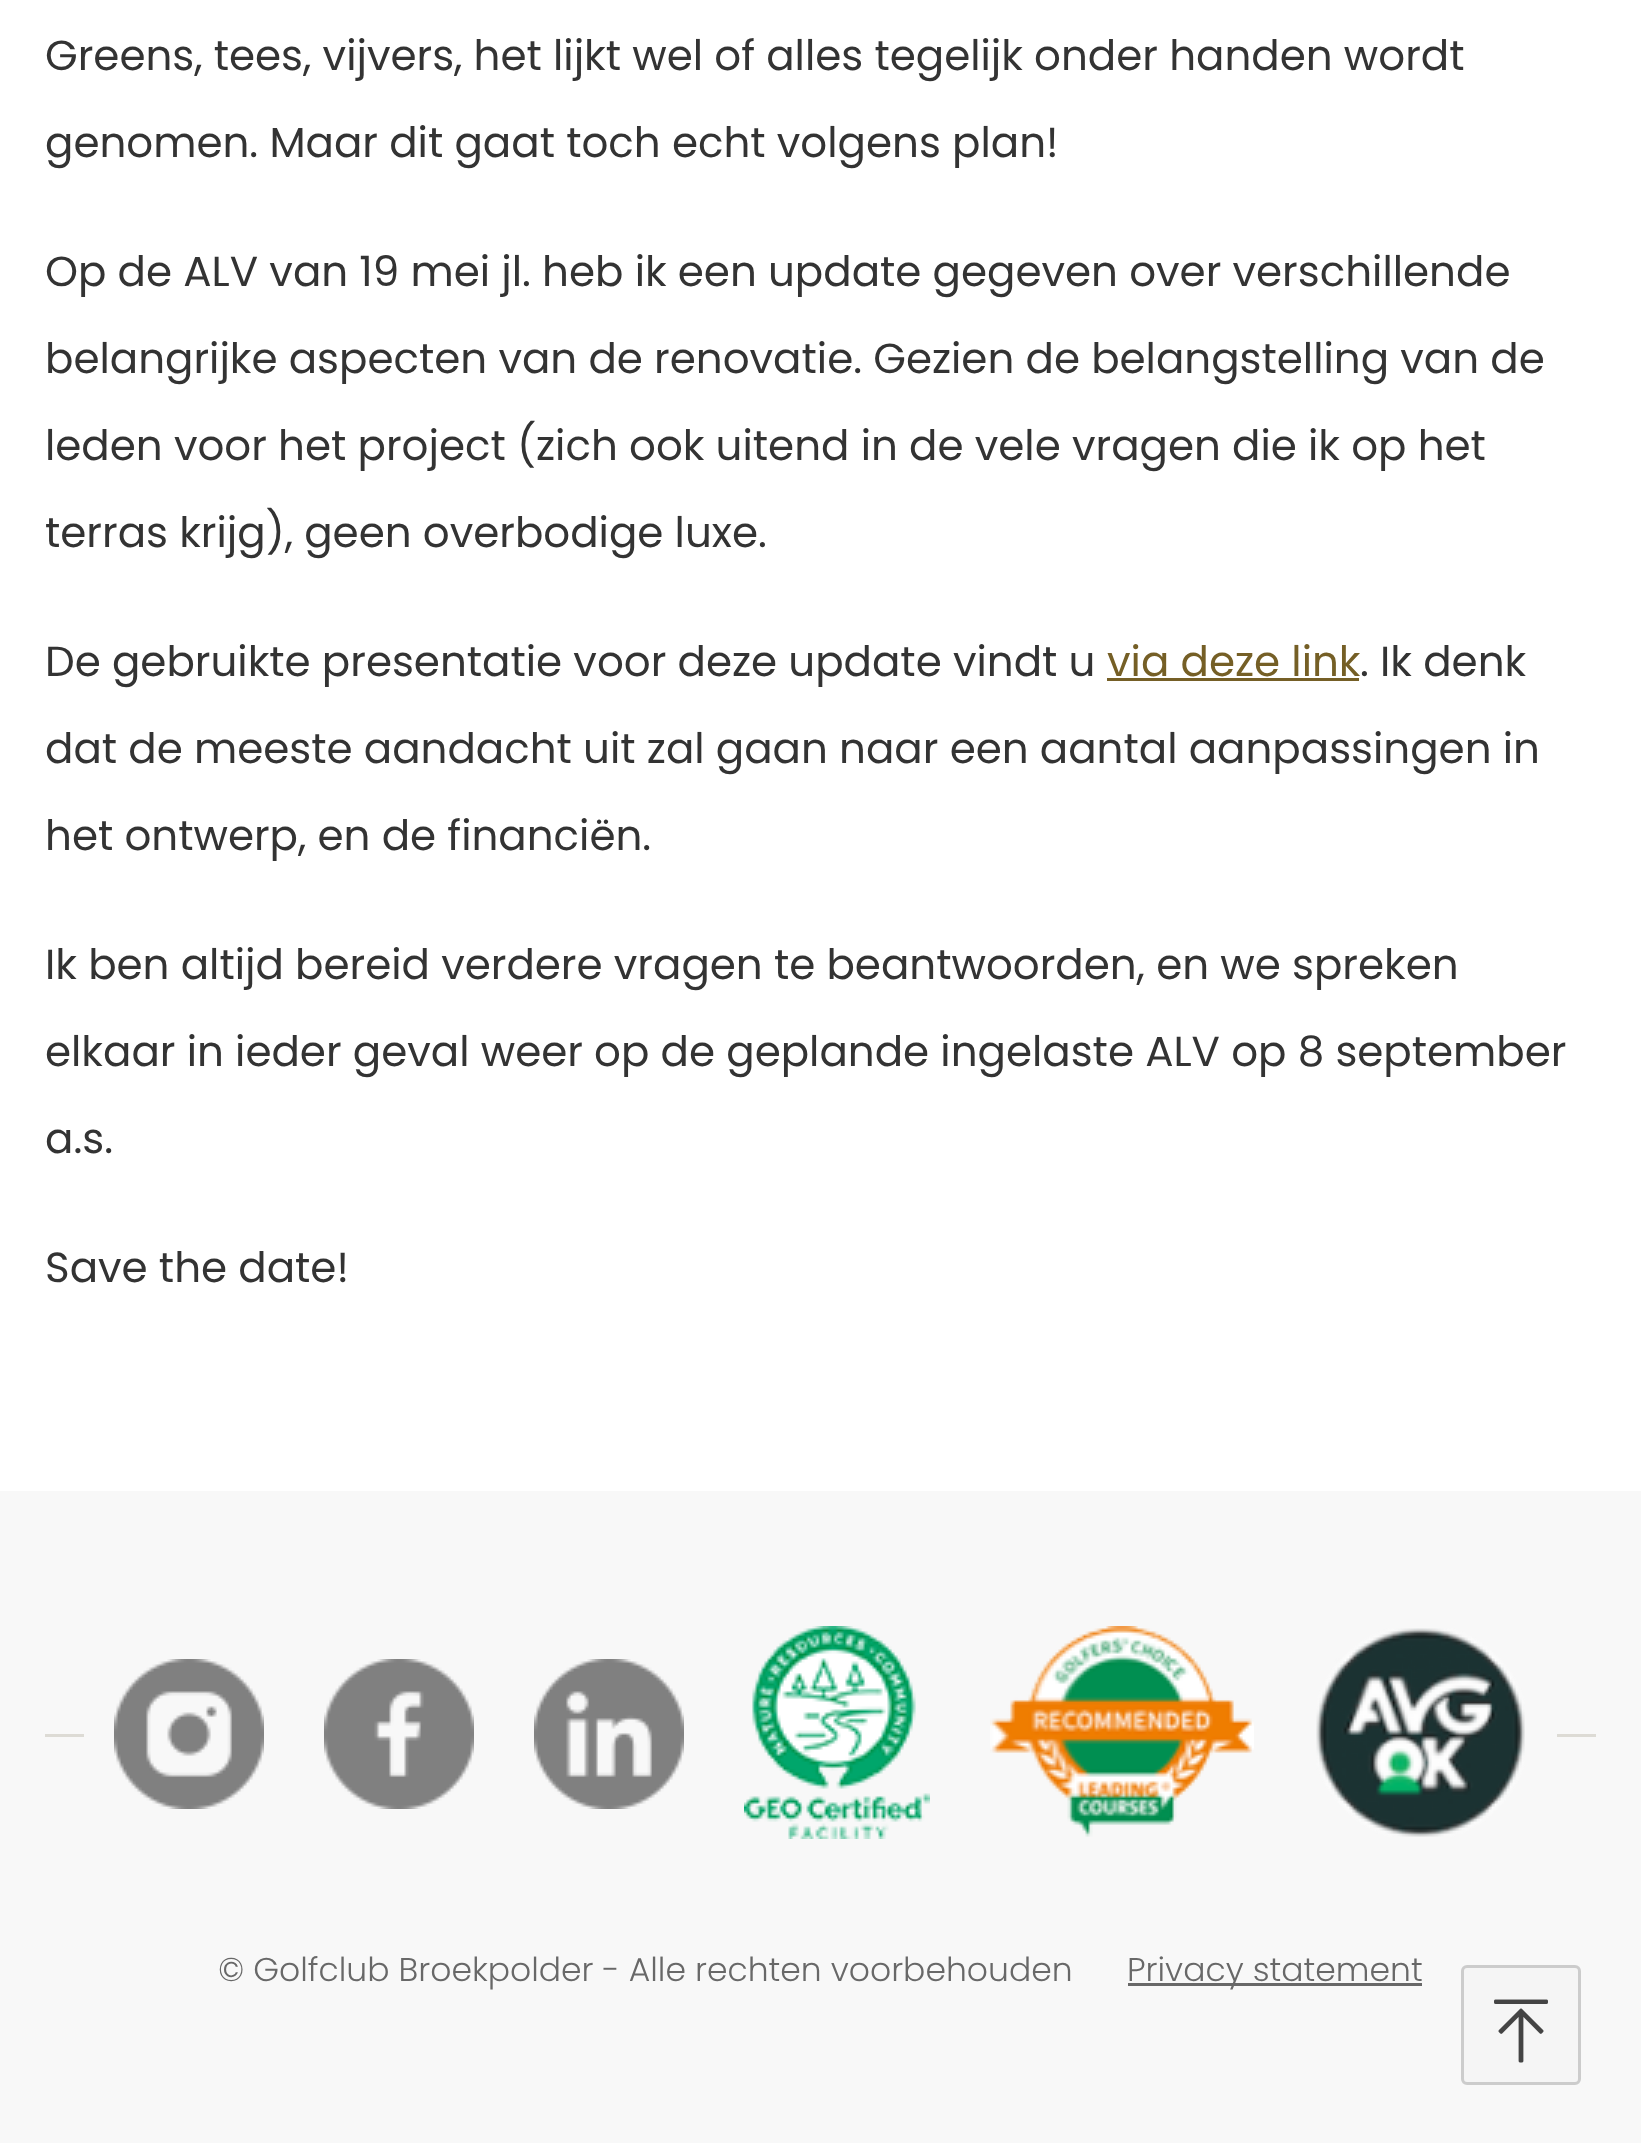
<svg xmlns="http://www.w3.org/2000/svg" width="1641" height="2143">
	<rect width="100%" height="100%" fill="#FFFFFF" />
	<g font-family="Poppins" font-size="42" fill="#333333">
		<text x="45" y="70">Greens, tees, vijvers, het lijkt wel of alles tegelijk onder handen wordt</text>
		<text x="45" y="157">genomen. Maar dit gaat toch echt volgens plan!</text>
		<text x="45" y="286">Op de ALV van 19 mei jl. heb ik een update gegeven over verschillende</text>
		<text x="45" y="373">belangrijke aspecten van de renovatie. Gezien de belangstelling van de</text>
		<text x="45" y="460">leden voor het project (zich ook uitend in de vele vragen die ik op het</text>
		<text x="45" y="547">terras krijg), geen overbodige luxe.</text>
		<text x="45" y="676">De gebruikte presentatie voor deze update vindt u</text>
	</g>
	<text x="1107" y="676" font-family="Poppins" font-size="42" fill="#755F26">via deze link</text>
	<rect x="1107" y="678" width="252" height="3" fill="#755F26" />
	<g font-family="Poppins" font-size="42" fill="#333333">
		<text x="1360" y="676">. Ik denk</text>
		<text x="45" y="763">dat de meeste aandacht uit zal gaan naar een aantal aanpassingen in</text>
		<text x="45" y="850">het ontwerp, en de financiën.</text>
		<text x="45" y="979">Ik ben altijd bereid verdere vragen te beantwoorden, en we spreken</text>
		<text x="45" y="1066">elkaar in ieder geval weer op de geplande ingelaste ALV op 8 september</text>
		<text x="45" y="1153">a.s.</text>
		<text x="45" y="1282">Save the date!</text>
	</g>
	<rect x="0" y="1491" width="1641" height="652" fill="#F8F8F8" />
	<rect x="45" y="1734" width="1551" height="3" fill="#DDDBD5" />
	<rect x="714" y="1734" width="843" height="3" fill="#F8F8F8" />
	<image x="744" y="1626" width="186" height="213" href="assets/img1.png" />
	<rect x="84" y="1734" width="630" height="3" fill="#F8F8F8" />
	<image x="114" y="1659" width="150" height="150" href="assets/img2.png" />
	<image x="990" y="1626" width="264" height="211" href="assets/img3.png" />
	<image x="1316" y="1628" width="209" height="209" href="assets/img4.png" />
	<image x="324" y="1659" width="150" height="150" href="assets/img5.png" />
	<image x="534" y="1659" width="150" height="150" href="assets/img6.png" />
	<text x="218" y="1981" font-family="Poppins" font-size="33" font-weight="300" fill="#686868">© Golfclub Broekpolder - Alle rechten voorbehouden</text>
	<rect x="1128" y="1983" width="294" height="3" fill="#686868" />
	<text x="1127" y="1981" font-family="Poppins" font-size="33" font-weight="300" fill="#686868">Privacy statement</text>
	<rect x="1462.5" y="1966.5" width="117" height="117" rx="4.5" fill="#F5F5F5" stroke="#CCCCCC" stroke-width="3" />
	<image x="1494" y="1999" width="54" height="64" href="assets/img7.png" />
</svg>
